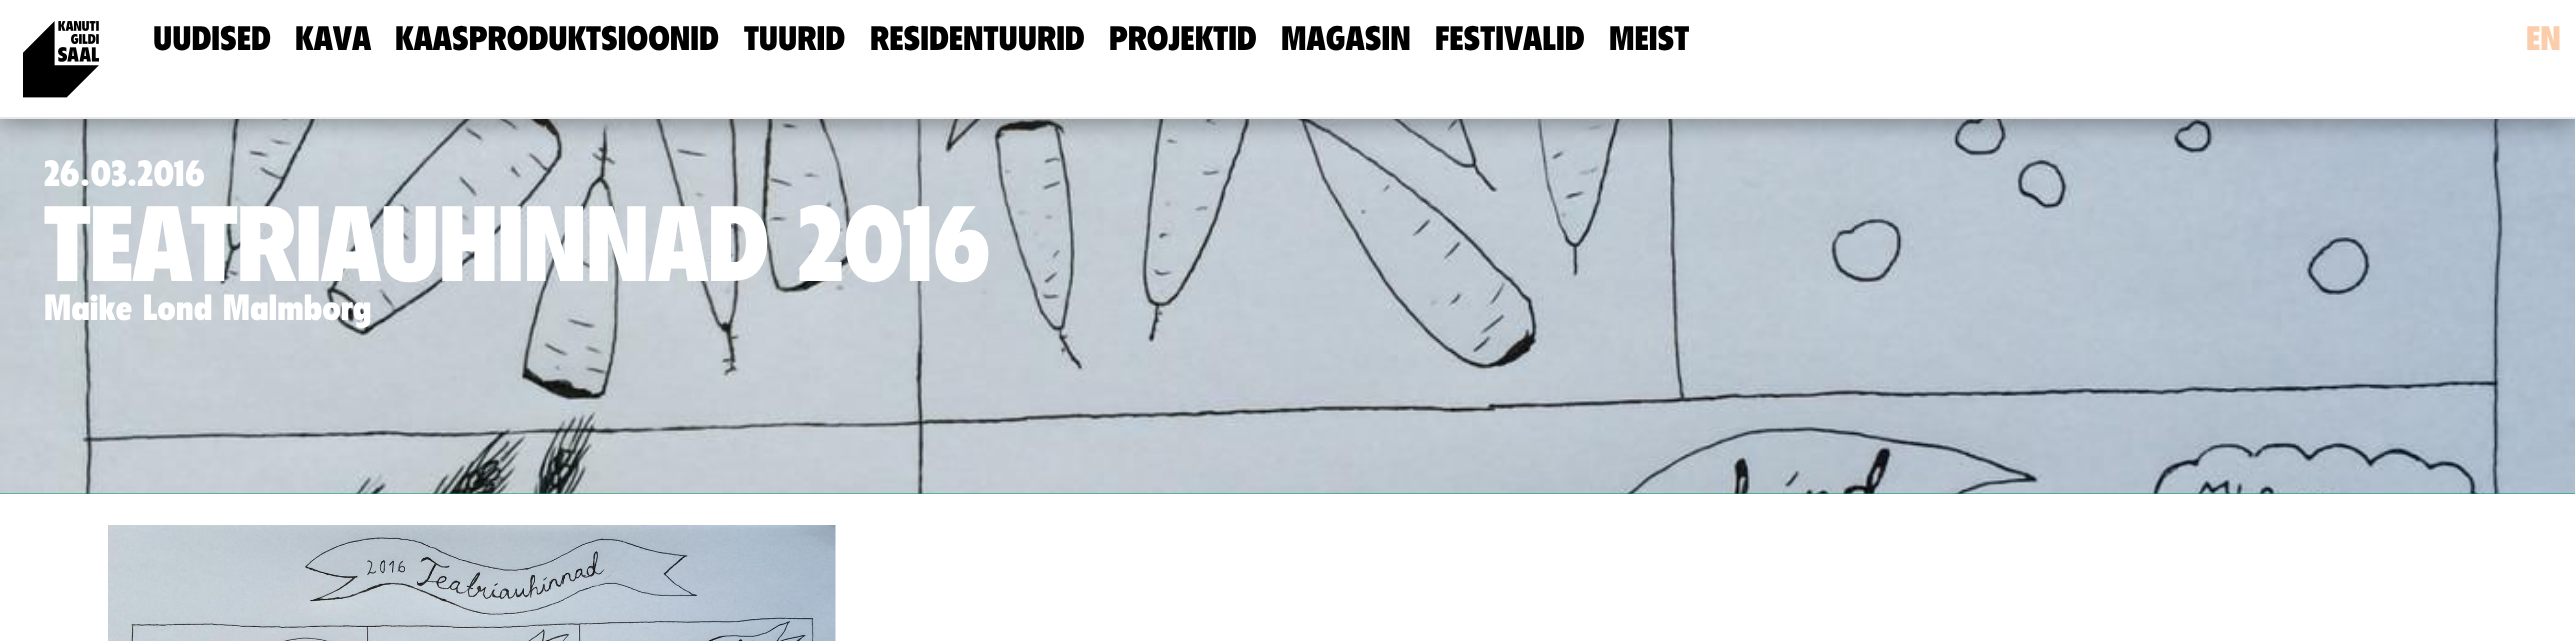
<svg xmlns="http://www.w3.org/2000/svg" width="2575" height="641">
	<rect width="100%" height="100%" fill="#FFFFFF" />
	<rect x="0" y="493" width="2575" height="1" fill="#00906B" />
	<image x="0" y="119" width="2575" height="375" href="assets/img2.png" />
	<rect x="0" y="5" width="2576" height="118" fill="#000000" fill-opacity="0.35" filter="blur(11px)" />
	<rect x="0" y="0" width="2575" height="117" fill="#FFFFFF" />
	<rect x="0" y="117" width="2575" height="2" fill="#E7E7E7" />
	<image x="23" y="21" width="76" height="77" href="assets/img1.png" />
	<g font-family="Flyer" font-size="33.5" font-weight="900" fill="#000000">
		<text x="153" y="50">UUDISED</text>
		<text x="295" y="50">KAVA</text>
		<text x="395" y="50">KAASPRODUKTSIOONID</text>
		<text x="744" y="50">TUURID</text>
		<text x="870" y="50">RESIDENTUURID</text>
		<text x="1109" y="50">PROJEKTID</text>
		<text x="1281" y="50">MAGASIN</text>
		<text x="1435" y="50">FESTIVALID</text>
		<text x="1609" y="50">MEIST</text>
	</g>
	<text x="2526" y="50" font-family="Flyer" font-size="33.5" font-weight="900" fill="#FCCDAB">EN</text>
	<text x="44" y="186" font-family="Flyer" font-size="35.75" font-weight="900" fill="#FFFFFF">26.03.2016</text>
	<text x="44" y="281" font-family="Flyer" font-size="105" font-weight="900" letter-spacing="-1.5" fill="#FFFFFF">TEATRIAUHINNAD 2016</text>
	<text x="44" y="320" font-family="Flyer" font-size="35.75" font-weight="900" fill="#FFFFFF">Maike Lond Malmborg</text>
	<image x="108" y="525" width="728" height="116" href="assets/img3.png" />
</svg>
